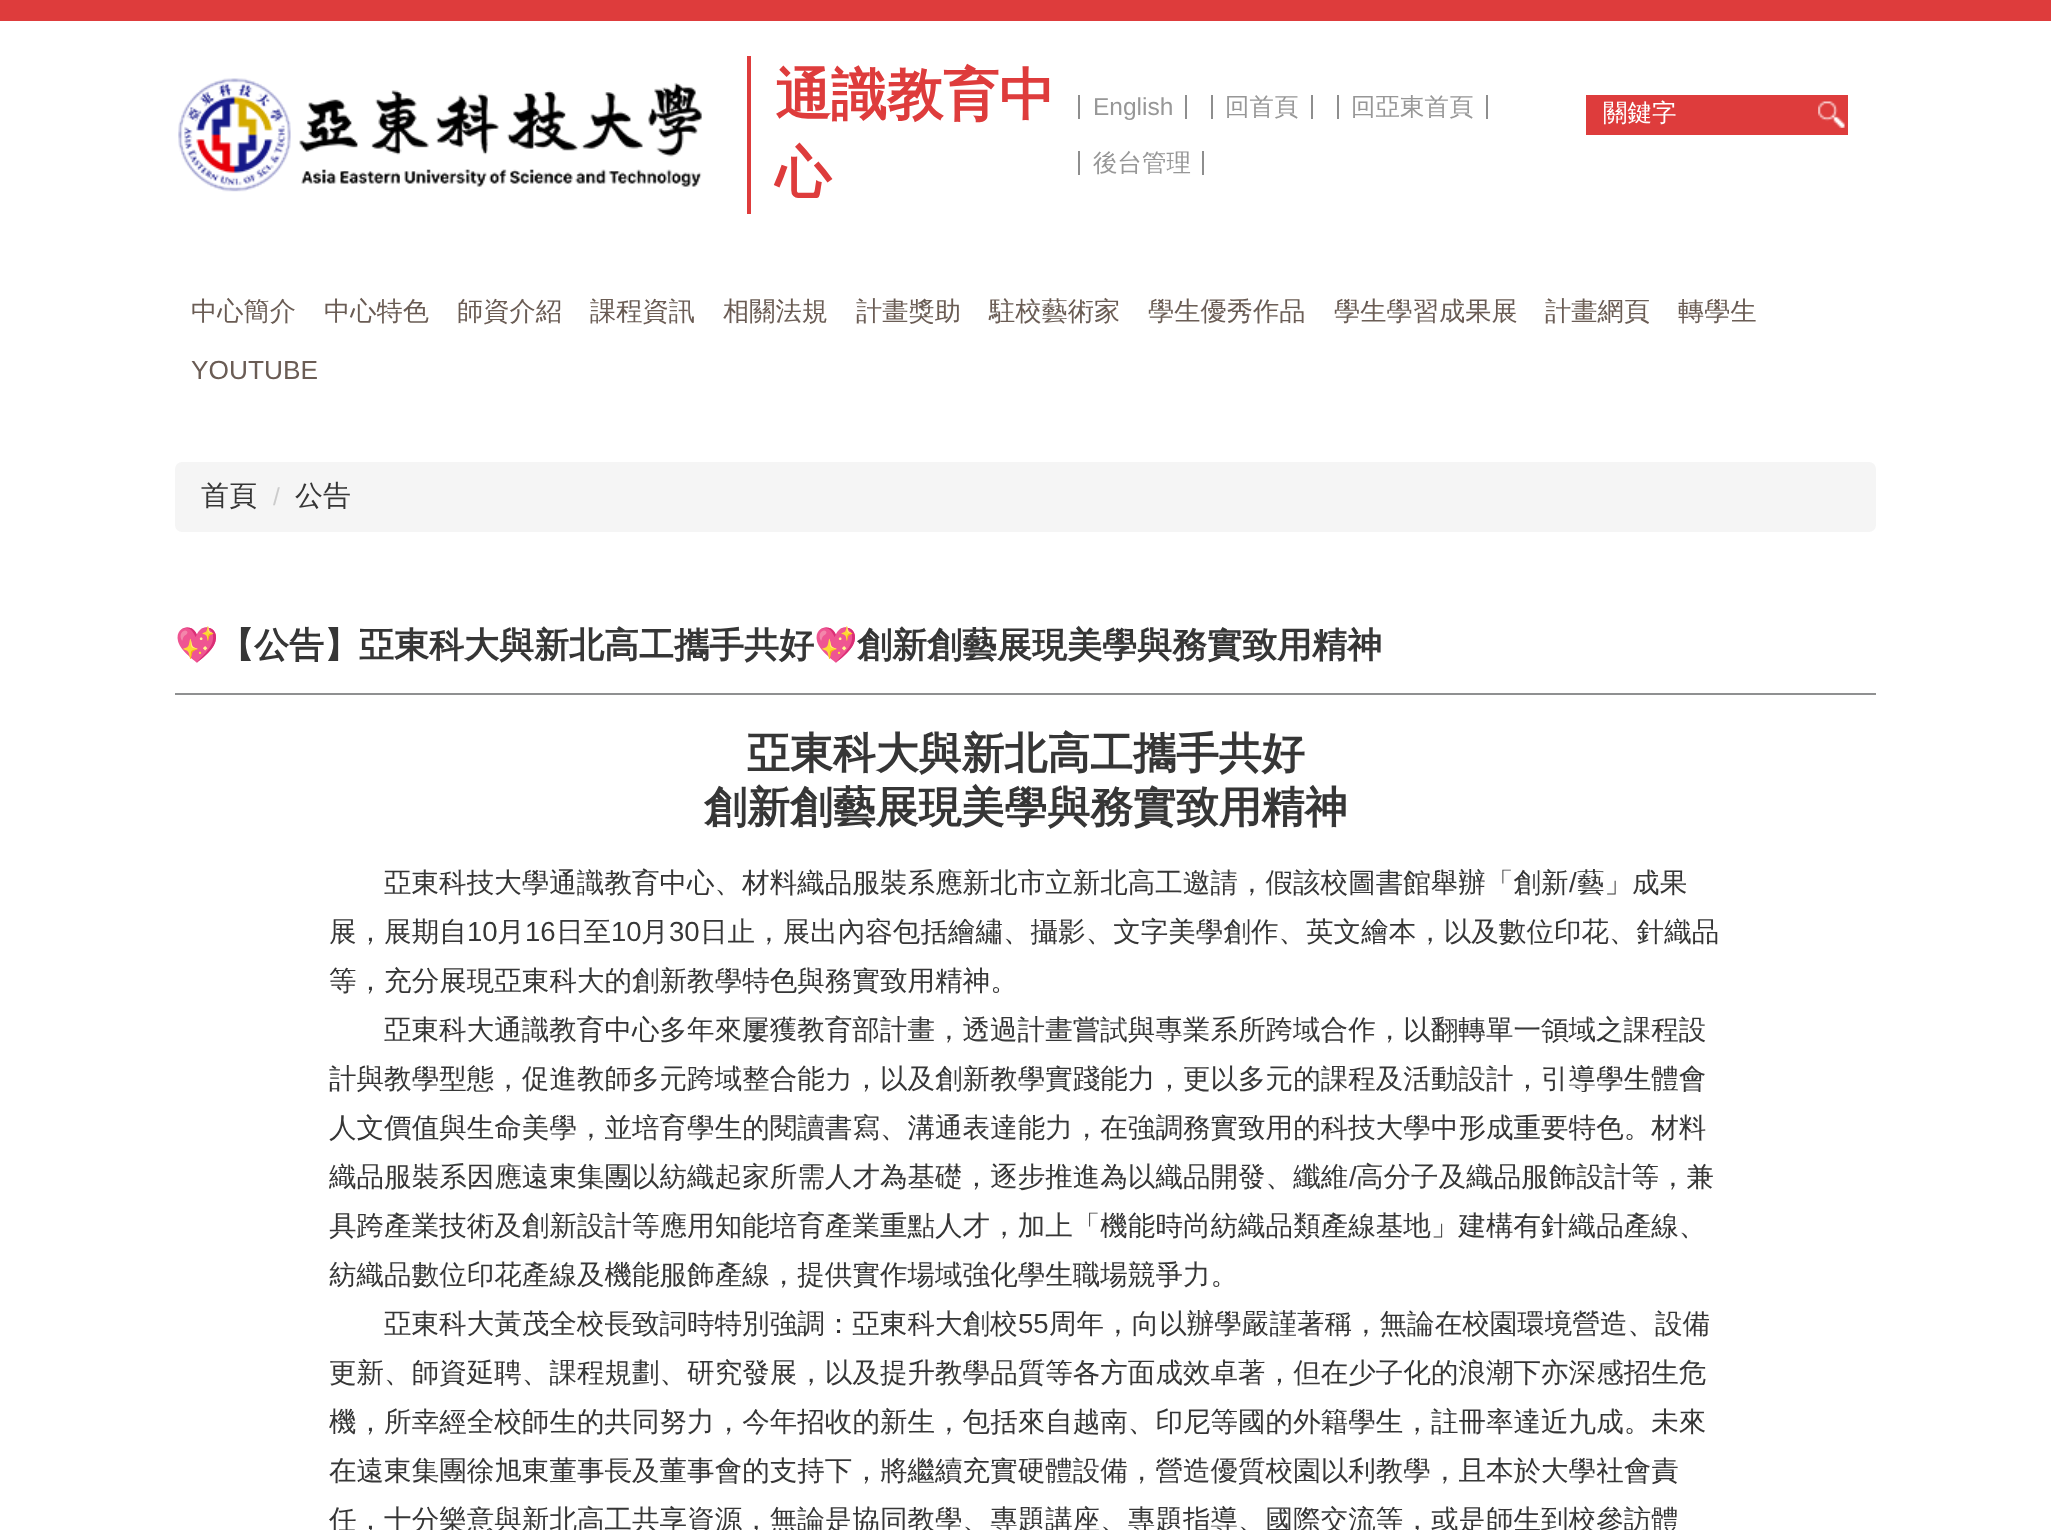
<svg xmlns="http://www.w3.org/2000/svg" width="2051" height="1530">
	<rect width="100%" height="100%" fill="#FFFFFF" />
	<rect x="0" y="0" width="2051" height="21" fill="#DE3C3C" />
	<image x="178" y="78" width="524" height="114" href="assets/img1.png" />
	<rect x="747" y="56" width="4" height="158" fill="#DE3C3C" />
	<g font-family="WenQuanYi Zen Hei" font-size="56" font-weight="700" fill="#DE3C3C">
		<text x="775" y="114">通識教育中</text>
		<text x="775" y="192">心</text>
	</g>
	<rect x="1078" y="95" width="2" height="24" fill="#8E8E8E" />
	<text x="1093" y="115" font-family="Liberation Sans" font-size="24.5" fill="#979797">English</text>
	<rect x="1185" y="95" width="2" height="24" fill="#8E8E8E" />
	<rect x="1211" y="95" width="2" height="24" fill="#8E8E8E" />
	<text x="1225" y="115" font-family="WenQuanYi Zen Hei" font-size="24.5" font-weight="500" fill="#979797">回首頁</text>
	<rect x="1311" y="95" width="2" height="24" fill="#8E8E8E" />
	<rect x="1337" y="95" width="2" height="24" fill="#8E8E8E" />
	<text x="1351" y="115" font-family="WenQuanYi Zen Hei" font-size="24.5" font-weight="500" fill="#979797">回亞東首頁</text>
	<rect x="1486" y="95" width="2" height="24" fill="#8E8E8E" />
	<rect x="1078" y="151" width="2" height="24" fill="#8E8E8E" />
	<text x="1093" y="171" font-family="WenQuanYi Zen Hei" font-size="24.5" font-weight="500" fill="#979797">後台管理</text>
	<rect x="1202" y="151" width="2" height="24" fill="#8E8E8E" />
	<rect x="1586" y="95" width="262" height="40" fill="#DE3C3C" />
	<text x="1603" y="121" font-family="WenQuanYi Zen Hei" font-size="24.5" font-weight="500" fill="#FFFFFF">關鍵字</text>
	<image x="1818" y="101" width="27" height="27" href="assets/img2.png" />
	<g font-family="WenQuanYi Zen Hei" font-size="26.25" font-weight="500" fill="#6A5C54">
		<text x="191" y="320">中心簡介</text>
		<text x="324" y="320">中心特色</text>
		<text x="457" y="320">師資介紹</text>
		<text x="590" y="320">課程資訊</text>
		<text x="723" y="320">相關法規</text>
		<text x="856" y="320">計畫獎助</text>
		<text x="989" y="320">駐校藝術家</text>
		<text x="1148" y="320">學生優秀作品</text>
		<text x="1334" y="320">學生學習成果展</text>
		<text x="1545" y="320">計畫網頁</text>
		<text x="1678" y="320">轉學生</text>
	</g>
	<text x="191" y="379" font-family="Liberation Sans" font-size="26.25" fill="#6A5C54">YOUTUBE</text>
	<rect x="175" y="462" width="1701" height="70" rx="7" fill="#F5F5F5" />
	<text x="201" y="505" font-family="WenQuanYi Zen Hei" font-size="28" font-weight="500" fill="#363636">首頁</text>
	<text x="273" y="505" font-family="Liberation Sans" font-size="24.5" fill="#CCCCCC">/</text>
	<text x="295" y="505" font-family="WenQuanYi Zen Hei" font-size="28" font-weight="500" fill="#363636">公告</text>
	<rect x="175" y="693" width="1701" height="2" fill="#8F9091" />
	<text x="175" y="657" font-family="Noto Color Emoji" font-size="35" font-weight="700" fill="#363636">💖</text>
	<text x="219" y="657" font-family="WenQuanYi Zen Hei" font-size="35" font-weight="700" fill="#363636">【公告】亞東科大與新北高工攜手共好</text>
	<text x="814" y="657" font-family="Noto Color Emoji" font-size="35" font-weight="700" fill="#363636">💖</text>
	<text x="857" y="657" font-family="WenQuanYi Zen Hei" font-size="35" font-weight="700" fill="#363636">創新創藝展現美學與務實致用精神</text>
	<g font-family="WenQuanYi Zen Hei" font-size="42.9" font-weight="700" fill="#363636">
		<text x="747" y="768">亞東科大與新北高工攜手共好</text>
		<text x="704" y="822">創新創藝展現美學與務實致用精神</text>
	</g>
	<text x="384" y="892" font-family="WenQuanYi Zen Hei" font-size="27.55" font-weight="500" fill="#363636">亞東科技大學通識教育中心、材料織品服裝系應新北市立新北高工邀請，假該校圖書館舉辦「創新</text>
	<text x="1569" y="892" font-family="Liberation Sans" font-size="27.55" fill="#363636">/</text>
	<g font-family="WenQuanYi Zen Hei" font-size="27.55" font-weight="500" fill="#363636">
		<text x="1577" y="892">藝」成果</text>
		<text x="329" y="941">展，展期自</text>
	</g>
	<text x="467" y="941" font-family="Liberation Sans" font-size="27.55" fill="#363636">10</text>
	<text x="497" y="941" font-family="WenQuanYi Zen Hei" font-size="27.55" font-weight="500" fill="#363636">月</text>
	<text x="525" y="941" font-family="Liberation Sans" font-size="27.55" fill="#363636">16</text>
	<text x="556" y="941" font-family="WenQuanYi Zen Hei" font-size="27.55" font-weight="500" fill="#363636">日至</text>
	<text x="611" y="941" font-family="Liberation Sans" font-size="27.55" fill="#363636">10</text>
	<text x="641" y="941" font-family="WenQuanYi Zen Hei" font-size="27.55" font-weight="500" fill="#363636">月</text>
	<text x="669" y="941" font-family="Liberation Sans" font-size="27.55" fill="#363636">30</text>
	<g font-family="WenQuanYi Zen Hei" font-size="27.55" font-weight="500" fill="#363636">
		<text x="700" y="941">日止，展出內容包括繪繡、攝影、文字美學創作、英文繪本，以及數位印花、針織品</text>
		<text x="329" y="990">等，充分展現亞東科大的創新教學特色與務實致用精神。</text>
		<text x="384" y="1039">亞東科大通識教育中心多年來屢獲教育部計畫，透過計畫嘗試與專業系所跨域合作，以翻轉單一領域之課程設</text>
		<text x="329" y="1088">計與教學型態，促進教師多元跨域整合能力，以及創新教學實踐能力，更以多元的課程及活動設計，引導學生體會</text>
		<text x="329" y="1137">人文價值與生命美學，並培育學生的閱讀書寫、溝通表達能力，在強調務實致用的科技大學中形成重要特色。材料</text>
		<text x="329" y="1186">織品服裝系因應遠東集團以紡織起家所需人才為基礎，逐步推進為以織品開發、纖維</text>
	</g>
	<text x="1349" y="1186" font-family="Liberation Sans" font-size="27.55" fill="#363636">/</text>
	<g font-family="WenQuanYi Zen Hei" font-size="27.55" font-weight="500" fill="#363636">
		<text x="1356" y="1186">高分子及織品服飾設計等，兼</text>
		<text x="329" y="1235">具跨產業技術及創新設計等應用知能培育產業重點人才，加上「機能時尚紡織品類產線基地」建構有針織品產線、</text>
		<text x="329" y="1284">紡織品數位印花產線及機能服飾產線，提供實作場域強化學生職場競爭力。</text>
		<text x="384" y="1333">亞東科大黃茂全校長致詞時特別強調：亞東科大創校</text>
	</g>
	<text x="1018" y="1333" font-family="Liberation Sans" font-size="27.55" fill="#363636">55</text>
	<g font-family="WenQuanYi Zen Hei" font-size="27.55" font-weight="500" fill="#363636">
		<text x="1049" y="1333">周年，向以辦學嚴謹著稱，無論在校園環境營造、設備</text>
		<text x="329" y="1382">更新、師資延聘、課程規劃、研究發展，以及提升教學品質等各方面成效卓著，但在少子化的浪潮下亦深感招生危</text>
		<text x="329" y="1431">機，所幸經全校師生的共同努力，今年招收的新生，包括來自越南、印尼等國的外籍學生，註冊率達近九成。未來</text>
		<text x="329" y="1480">在遠東集團徐旭東董事長及董事會的支持下，將繼續充實硬體設備，營造優質校園以利教學，且本於大學社會責</text>
		<text x="329" y="1529">任，十分樂意與新北高工共享資源，無論是協同教學、專題講座、專題指導、國際交流等，或是師生到校參訪體</text>
	</g>
</svg>
